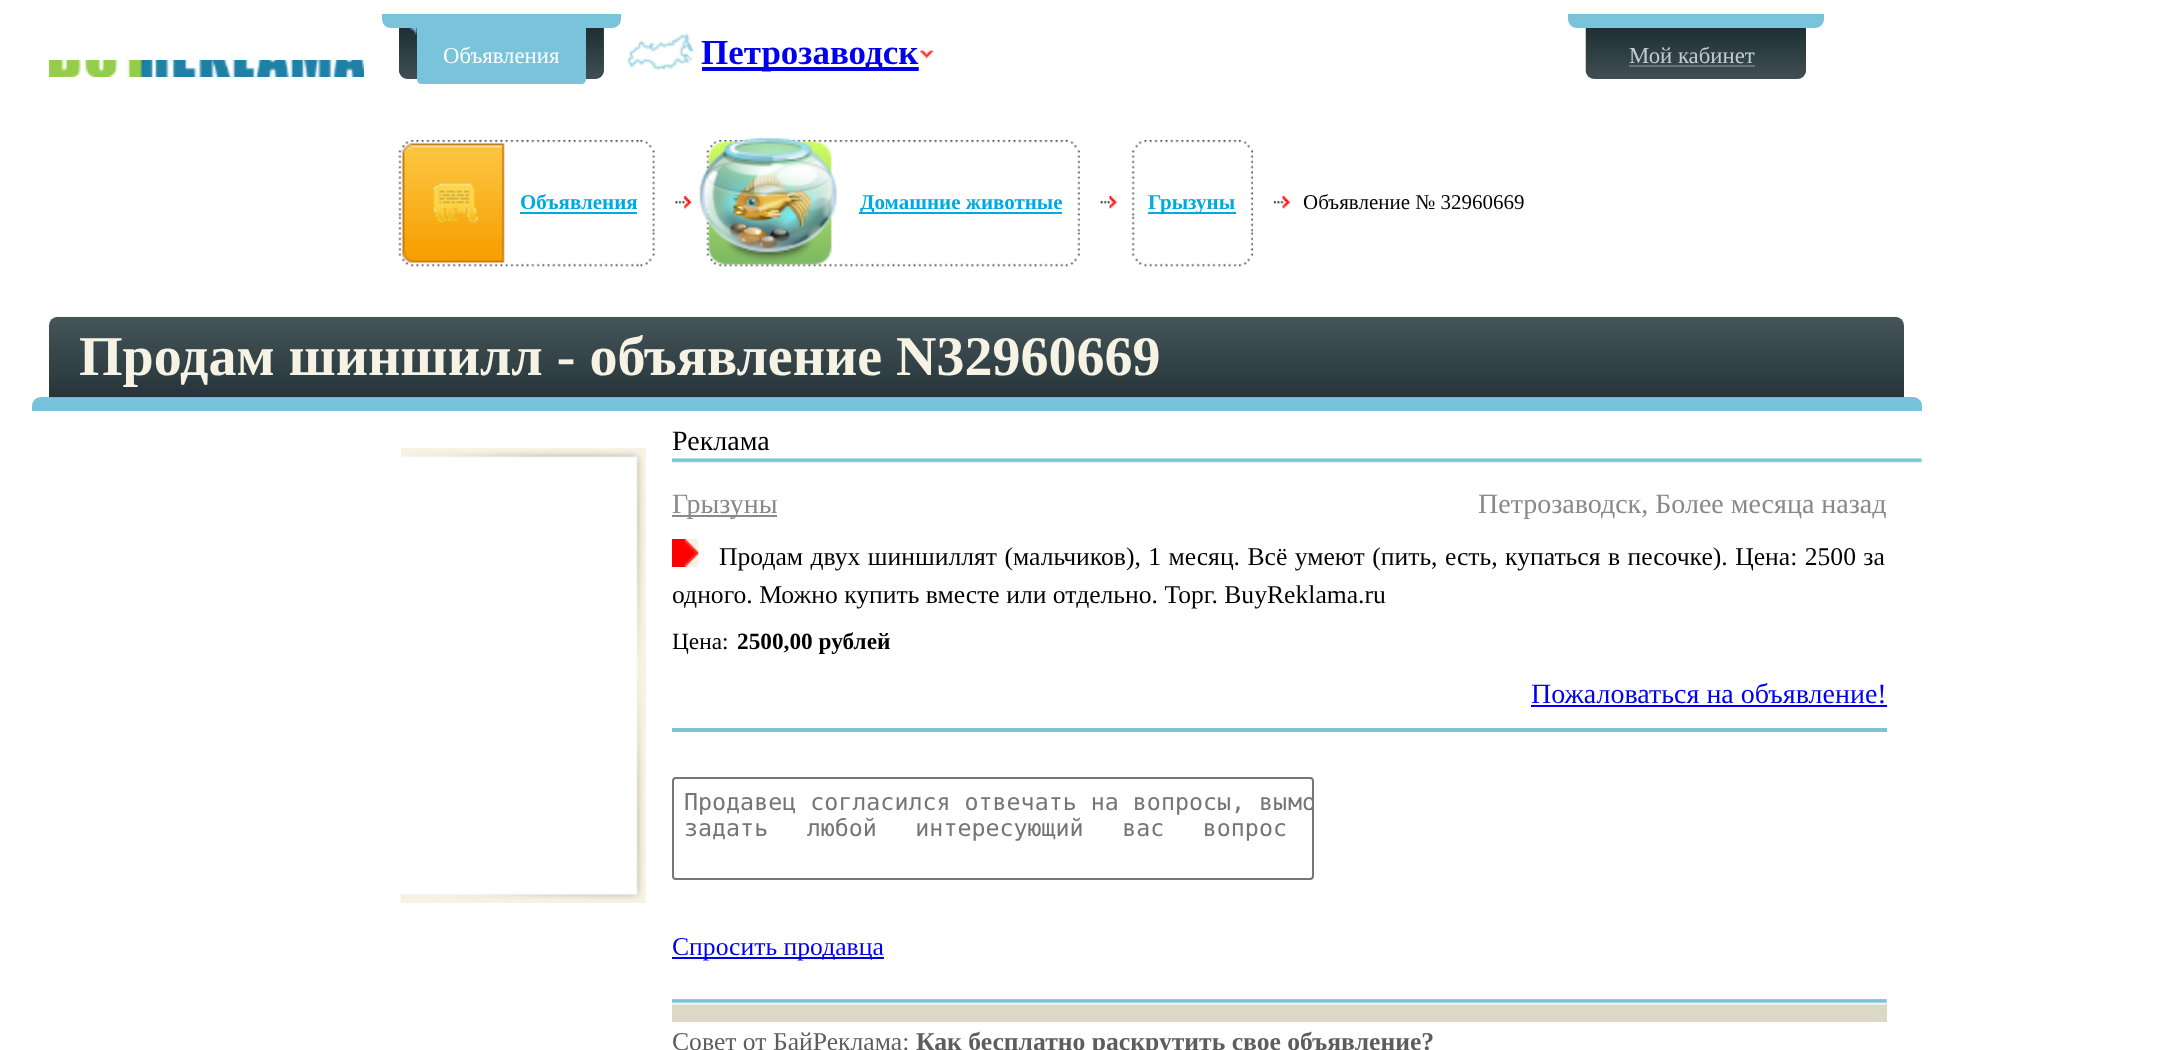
<svg xmlns="http://www.w3.org/2000/svg" width="2165" height="1050">
	<defs>
		<clipPath id="clip1"><rect x="674" y="779" width="639" height="100" /></clipPath>
	</defs>
	<rect width="100%" height="100%" fill="#FFFFFF" />
	<path d="M382 14H621V19C621 24 617 28 612 28H391C386 28 382 24 382 19Z" fill="#79C4DB" />
	<path d="M399 28H604V70C604 75 600 79 595 79H408C403 79 399 75 399 70Z" fill="#435258" />
	<image x="399" y="28" width="205" height="51" href="assets/img1.png" />
	<path d="M417 28H586V79C586 82 584 84 581 84H422C419 84 417 82 417 79Z" fill="#79C4DB" />
	<image x="409" y="28" width="8" height="7" href="assets/img2.png" />
	<text x="443" y="63" font-family="Liberation Serif" font-size="22.75" fill="#FFFFFF">Объявления</text>
	<image x="627" y="33" width="67" height="38" href="assets/img3.png" />
	<rect x="702" y="67" width="217" height="4" fill="#0000EE" />
	<text x="701" y="64" font-family="Liberation Serif" font-size="35" font-weight="700" fill="#0000EE">Петрозаводск</text>
	<image x="918" y="50" width="16" height="21" href="assets/img4.png" />
	<image x="398" y="140" width="121" height="127" href="assets/img5.png" />
	<image x="402" y="143" width="103" height="120" href="assets/img6.png" />
	<image x="521" y="140" width="118" height="127" href="assets/img7.png" />
	<text x="520" y="209" font-family="Liberation Serif" font-size="21" font-weight="700" fill="#00AAE0">Объявления</text>
	<rect x="520" y="212" width="117" height="2" fill="#00AAE0" />
	<image x="640" y="140" width="15" height="127" href="assets/img8.png" />
	<image x="675" y="196" width="17" height="13" href="assets/img9.png" />
	<image x="706" y="140" width="152" height="127" href="assets/img10.png" />
	<image x="699" y="137" width="138" height="128" href="assets/img11.png" />
	<image x="860" y="140" width="204" height="127" href="assets/img12.png" />
	<rect x="859" y="212" width="203" height="2" fill="#00AAE0" />
	<text x="860" y="209" font-family="Liberation Serif" font-size="21" font-weight="700" fill="#00AAE0">Домашние животные</text>
	<image x="1065" y="140" width="15" height="127" href="assets/img13.png" />
	<image x="1100" y="196" width="17" height="13" href="assets/img14.png" />
	<image x="1131" y="140" width="16" height="127" href="assets/img15.png" />
	<image x="1149" y="140" width="88" height="127" href="assets/img16.png" />
	<rect x="1148" y="212" width="88" height="2" fill="#00AAE0" />
	<text x="1148" y="209" font-family="Liberation Serif" font-size="21" font-weight="700" fill="#00AAE0">Грызуны</text>
	<image x="1239" y="140" width="14" height="127" href="assets/img17.png" />
	<image x="1274" y="196" width="16" height="13" href="assets/img18.png" />
	<text x="1303" y="209" font-family="Liberation Serif" font-size="21" fill="#000000">Объявление № 32960669</text>
	<path d="M1568 14H1824V19C1824 24 1820 28 1815 28H1577C1572 28 1568 24 1568 19Z" fill="#79C4DB" />
	<path d="M1586 28H1806V70C1806 75 1802 79 1797 79H1595C1590 79 1586 75 1586 70Z" fill="#435258" />
	<image x="1585" y="28" width="221" height="51" href="assets/img19.png" />
	<text x="1629" y="63" font-family="Liberation Serif" font-size="22.75" fill="#C3CCD1">Мой кабинет</text>
	<rect x="1629" y="65" width="126" height="2" fill="#667379" />
	<image x="49" y="60" width="315" height="17" href="assets/img20.png" />
	<path d="M41 397H1913C1918 397 1922 401 1922 406V411H32V406C32 401 36 397 41 397Z" fill="#78C3DB" />
	<image x="49" y="316" width="1855" height="82" href="assets/img21.png" />
	<text x="79" y="375" font-family="Liberation Serif" font-size="56" font-weight="700" fill="#F6F3E4">Продам шиншилл - объявление N32960669</text>
	<image x="400" y="448" width="246" height="245" href="assets/img22.png" />
	<image x="400" y="658" width="246" height="245" href="assets/img23.png" />
	<image x="672" y="458" width="1250" height="5" href="assets/img24.png" />
	<text x="672" y="450" font-family="Liberation Serif" font-size="28" fill="#000000">Реклама</text>
	<rect x="672" y="515" width="105" height="2" fill="#898989" />
	<g font-family="Liberation Serif" font-size="28" fill="#898989">
		<text x="672" y="513">Грызуны</text>
		<text x="1478" y="513">Петрозаводск, Более месяца назад</text>
	</g>
	<image x="672" y="539" width="27" height="28" href="assets/img25.png" />
	<g font-family="Liberation Serif" font-size="25.65" fill="#000000">
		<text x="719" y="565" word-spacing="1">Продам двух шиншиллят (мальчиков), 1 месяц. Всё умеют (пить, есть, купаться в песочке). Цена: 2500 за</text>
		<text x="672" y="603">одного. Можно купить вместе или отдельно. Торг. BuyReklama.ru</text>
	</g>
	<text x="672" y="649" font-family="Liberation Serif" font-size="23.3" fill="#000000">Цена:</text>
	<text x="737" y="649" font-family="Liberation Serif" font-size="23.3" font-weight="700" fill="#000000">2500,00 рублей</text>
	<text x="1531" y="703" font-family="Liberation Serif" font-size="28" fill="#0000EE">Пожаловаться на объявление!</text>
	<rect x="1531" y="705" width="356" height="2" fill="#0000EE" />
	<rect x="672" y="728" width="1215" height="4" fill="#79C4DB" />
	<rect x="673" y="778" width="640" height="101" rx="3" fill="none" stroke="#767676" stroke-width="2" />
	<text x="684" y="810" font-family="DejaVu Sans Mono" font-size="23.3" fill="#757575">Продавец согласился отвечать на вопросы, вы</text>
	<g clip-path="url(#clip1)">
		<text x="1288" y="810" font-family="DejaVu Sans Mono" font-size="23.3" fill="#757575">мо</text>
	</g>
	<text x="684" y="836" word-spacing="24.5" font-family="DejaVu Sans Mono" font-size="23.3" fill="#757575">задать любой интересующий вас вопрос</text>
	<rect x="672" y="957" width="212" height="2" fill="#0000EE" />
	<text x="672" y="955" font-family="Liberation Serif" font-size="25.65" fill="#0000EE">Спросить продавца</text>
	<rect x="672" y="999" width="1215" height="23" fill="#DBD8C5" />
	<image x="672" y="999" width="1215" height="6" href="assets/img26.png" />
	<text x="672" y="1050" font-family="Liberation Serif" font-size="25.65" fill="#5D5D5D">Совет от БайРеклама:</text>
	<text x="916" y="1050" font-family="Liberation Serif" font-size="25.65" font-weight="700" fill="#5D5D5D">Как бесплатно раскрутить свое объявление?</text>
</svg>
